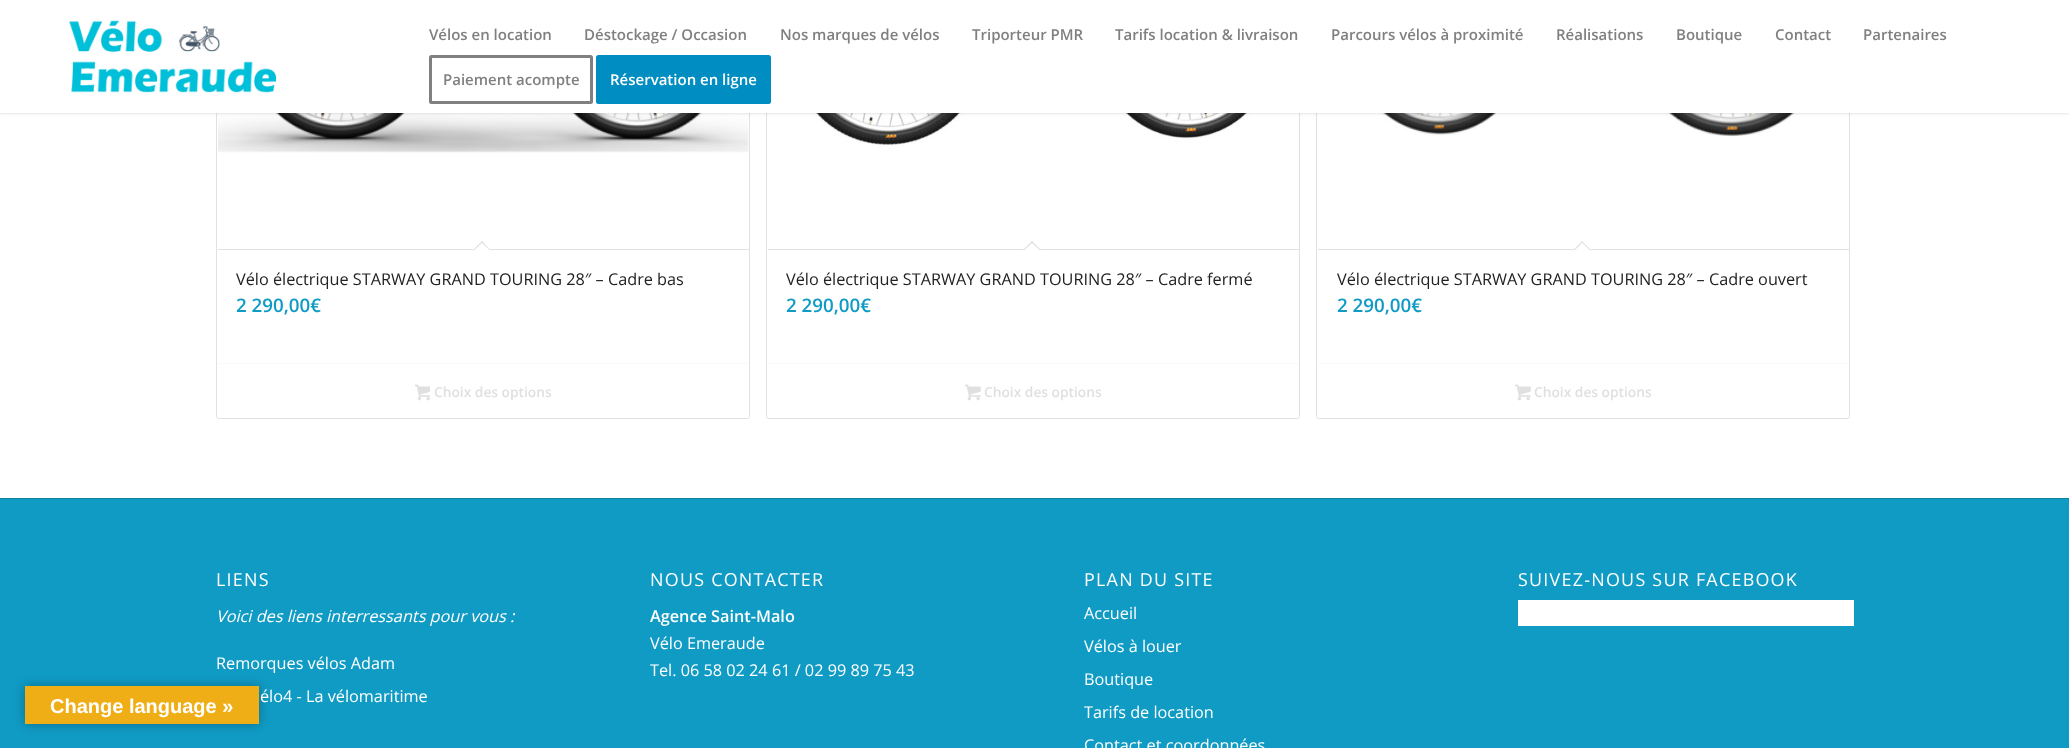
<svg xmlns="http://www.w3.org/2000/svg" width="2069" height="748">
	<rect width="100%" height="100%" fill="#FFFFFF" />
	<rect x="0" y="499" width="2069" height="249" fill="#109BC5" />
	<rect x="25" y="686" width="234" height="38" fill="#000000" fill-opacity="0.3" filter="blur(5.5px)" />
	<rect x="25" y="686" width="234" height="38" fill="#EFAE15" />
	<text x="50" y="713" font-family="Liberation Sans" font-size="20" font-weight="700" fill="#FFFFFF">Change language »</text>
	<rect x="216.5" y="-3.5" width="533" height="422" rx="2" fill="none" stroke="#E1E1E1" />
	<image x="218" y="113" width="531" height="40" href="assets/img2.png" />
	<rect x="766.5" y="-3.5" width="533" height="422" rx="2" fill="none" stroke="#E1E1E1" />
	<image x="779" y="113" width="497" height="33" href="assets/img4.png" />
	<rect x="1316.5" y="-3.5" width="533" height="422" rx="2" fill="none" stroke="#E1E1E1" />
	<image x="1338" y="113" width="489" height="24" href="assets/img6.png" />
	<rect x="-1" y="-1" width="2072" height="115" fill="#000000" fill-opacity="0.1" filter="blur(1px)" />
	<rect x="0" y="0" width="2069" height="113" fill="#FFFFFF" />
	<image x="69" y="20" width="208" height="73" href="assets/img1.png" />
	<g font-family="Open Sans" font-size="15" font-weight="600" fill="#808080">
		<text x="429" y="40">Vélos en location</text>
		<text x="584" y="40">Déstockage / Occasion</text>
		<text x="780" y="40">Nos marques de vélos</text>
		<text x="972" y="40">Triporteur PMR</text>
		<text x="1115" y="40">Tarifs location &amp; livraison</text>
		<text x="1331" y="40">Parcours vélos à proximité</text>
		<text x="1556" y="40">Réalisations</text>
		<text x="1676" y="40">Boutique</text>
		<text x="1775" y="40">Contact</text>
		<text x="1863" y="40">Partenaires</text>
	</g>
	<rect x="430.5" y="56.5" width="161" height="46" rx="1" fill="none" stroke="#808080" stroke-width="3" />
	<text x="443" y="85" font-family="Open Sans" font-size="15" font-weight="600" fill="#808080">Paiement acompte</text>
	<rect x="597.5" y="56.5" width="172" height="46" rx="1" fill="#008EC2" stroke="#008EC2" stroke-width="3" />
	<text x="610" y="85" font-family="Open Sans" font-size="15" font-weight="600" fill="#FFFFFF">Réservation en ligne</text>
	<rect x="218" y="249" width="531" height="1" fill="#E1E1E1" />
	<path d="M482 241L490.5 250L482 258.5L473 250Z" fill="#FFFFFF" />
	<path d="M482 241L490.5 250L490 250.5L481 242Z" fill="#E1E1E1" />
	<path d="M482 241L483 242L474 250.5L473 250Z" fill="#E1E1E1" />
	<text x="236" y="285" font-family="Open Sans" font-size="16.25" fill="#222222">Vélo électrique STARWAY GRAND TOURING 28″ – Cadre bas</text>
	<text x="236" y="312" font-family="Open Sans" font-size="18.75" font-weight="600" fill="#109BC5">2 290,00€</text>
	<rect x="218" y="363" width="531" height="1" fill="#F9F9F9" />
	<image x="415" y="384" width="15" height="17" href="assets/img3.png" />
	<text x="434" y="397" font-family="Open Sans" font-size="13.75" font-weight="600" fill="#E0E0E0">Choix des options</text>
	<rect x="768" y="249" width="531" height="1" fill="#E1E1E1" />
	<path d="M1032 241L1041 250L1032 258.5L1023 250Z" fill="#FFFFFF" />
	<path d="M1032 241L1041 250L1040 250.5L1031 242Z" fill="#E1E1E1" />
	<path d="M1032 241L1033 242L1024 250.5L1023 250Z" fill="#E1E1E1" />
	<text x="786" y="285" font-family="Open Sans" font-size="16.25" fill="#222222">Vélo électrique STARWAY GRAND TOURING 28″ – Cadre fermé</text>
	<text x="786" y="312" font-family="Open Sans" font-size="18.75" font-weight="600" fill="#109BC5">2 290,00€</text>
	<rect x="768" y="363" width="531" height="1" fill="#F9F9F9" />
	<image x="965" y="384" width="16" height="17" href="assets/img5.png" />
	<text x="984" y="397" font-family="Open Sans" font-size="13.75" font-weight="600" fill="#E0E0E0">Choix des options</text>
	<rect x="1318" y="249" width="531" height="1" fill="#E1E1E1" />
	<path d="M1582 241L1591 250L1582 258.5L1573.5 250Z" fill="#FFFFFF" />
	<path d="M1582 241L1591 250L1590 250.5L1581.5 242Z" fill="#E1E1E1" />
	<path d="M1582 241L1583 242L1574.5 250.5L1573.5 250Z" fill="#E1E1E1" />
	<text x="1337" y="285" font-family="Open Sans" font-size="16.25" fill="#222222">Vélo électrique STARWAY GRAND TOURING 28″ – Cadre ouvert</text>
	<text x="1337" y="312" font-family="Open Sans" font-size="18.75" font-weight="600" fill="#109BC5">2 290,00€</text>
	<rect x="1318" y="363" width="531" height="1" fill="#F9F9F9" />
	<image x="1515" y="384" width="16" height="17" href="assets/img5.png" />
	<text x="1534" y="397" font-family="Open Sans" font-size="13.75" font-weight="600" fill="#E0E0E0">Choix des options</text>
	<rect x="0" y="498" width="2069" height="1" fill="#0F81A1" />
	<text x="216" y="586" font-family="Open Sans" font-size="17.9" letter-spacing="1.25" fill="#FFFFFF">LIENS</text>
	<text x="216" y="622" font-family="Open Sans" font-size="16.25" font-style="italic" fill="#FFFFFF">Voici des liens interressants pour vous :</text>
	<g font-family="Open Sans" font-size="16.25" fill="#FFFFFF">
		<text x="216" y="669">Remorques vélos Adam</text>
		<text x="260" y="702">élo4 - La vélomaritime</text>
	</g>
	<text x="650" y="586" font-family="Open Sans" font-size="17.9" letter-spacing="1.25" fill="#FFFFFF">NOUS CONTACTER</text>
	<text x="650" y="622" font-family="Open Sans" font-size="16.25" font-weight="600" fill="#FFFFFF">Agence Saint-Malo</text>
	<g font-family="Open Sans" font-size="16.25" fill="#FFFFFF">
		<text x="650" y="649">Vélo Emeraude</text>
		<text x="650" y="676">Tel. 06 58 02 24 61 / 02 99 89 75 43</text>
	</g>
	<text x="1084" y="586" font-family="Open Sans" font-size="17.9" letter-spacing="1.25" fill="#FFFFFF">PLAN DU SITE</text>
	<g font-family="Open Sans" font-size="16.25" fill="#FFFFFF">
		<text x="1084" y="619">Accueil</text>
		<text x="1084" y="652">Vélos à louer</text>
		<text x="1084" y="685">Boutique</text>
		<text x="1084" y="718">Tarifs de location</text>
		<text x="1084" y="751">Contact et coordonnées</text>
	</g>
	<text x="1518" y="586" font-family="Open Sans" font-size="17.9" letter-spacing="1.25" fill="#FFFFFF">SUIVEZ-NOUS SUR FACEBOOK</text>
	<rect x="1518" y="600" width="336" height="26" fill="#FFFFFF" />
</svg>
